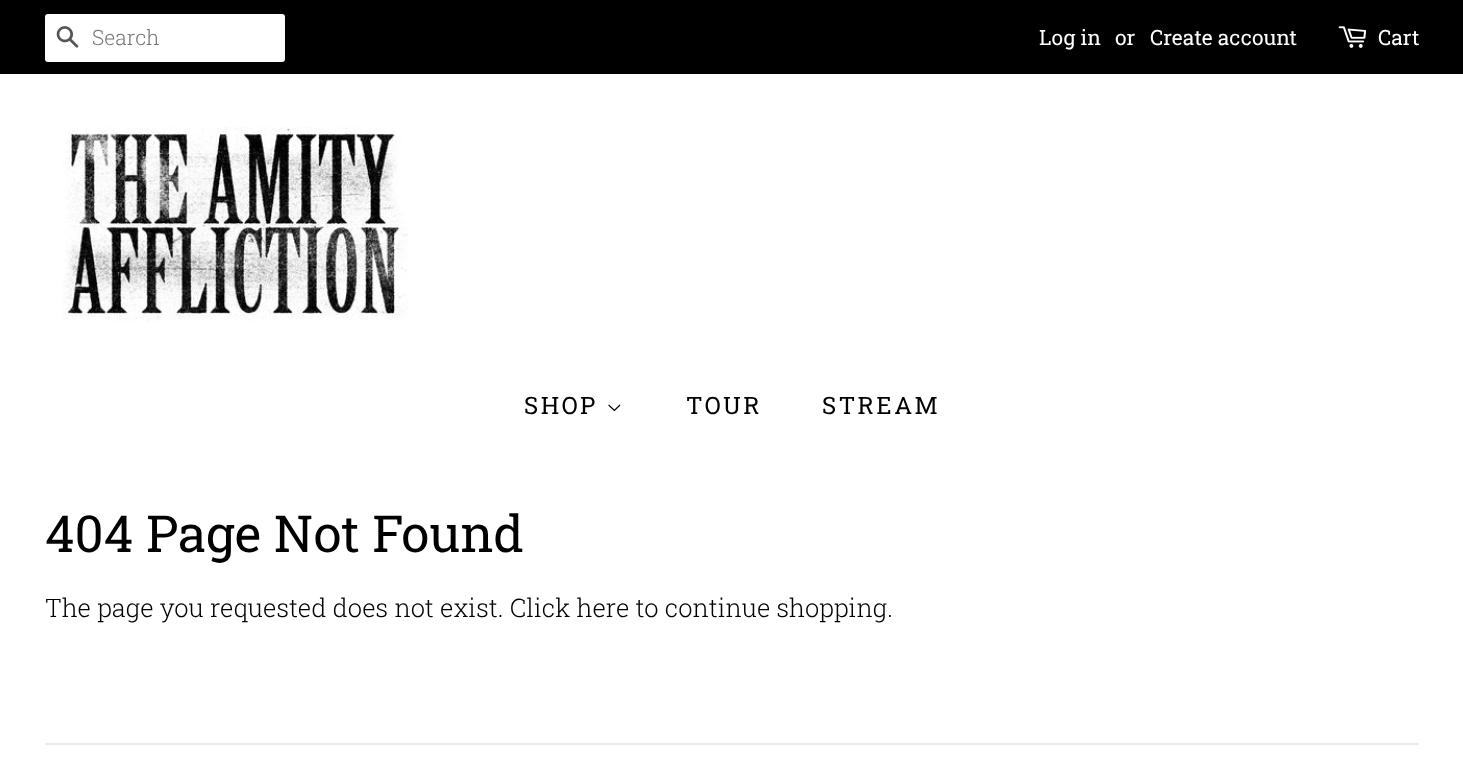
<svg xmlns="http://www.w3.org/2000/svg" width="1463" height="778">
	<rect width="100%" height="100%" fill="#FFFFFF" />
	<rect x="0" y="0" width="1463" height="74" fill="#000000" />
	<rect x="45" y="14" width="240" height="48" rx="3" fill="#FFFFFF" />
	<image x="56" y="26" width="23" height="22" href="assets/img1.png" />
	<text x="92" y="45" font-family="Roboto Slab" font-size="21" font-weight="300" fill="#757575">Search</text>
	<g font-family="Roboto Slab" font-size="21" fill="#FFFFFF">
		<text x="1039" y="45">Log in</text>
		<text x="1115" y="45">or</text>
		<text x="1150" y="45">Create account</text>
	</g>
	<image x="1338" y="26" width="29" height="22" href="assets/img2.png" />
	<text x="1378" y="45" font-family="Roboto Slab" font-size="21" fill="#FFFFFF">Cart</text>
	<image x="62" y="127" width="346" height="195" href="assets/img3.png" />
	<text x="524" y="414" font-family="Roboto Slab" font-size="24" letter-spacing="2.5" fill="#000000">SHOP</text>
	<image x="608" y="404" width="13" height="8" href="assets/img4.png" />
	<g font-family="Roboto Slab" font-size="24" letter-spacing="2.5" fill="#000000">
		<text x="686" y="414">TOUR</text>
		<text x="822" y="414">STREAM</text>
	</g>
	<text x="45" y="552" font-family="Roboto Slab" font-size="51" fill="#000000">404 Page Not Found</text>
	<text x="45" y="617" font-family="Roboto Slab" font-size="25.5" font-weight="300" fill="#000000">The page you requested does not exist. Click here to continue shopping.</text>
	<rect x="45" y="743" width="1374" height="2" fill="#EBEBEB" />
</svg>
